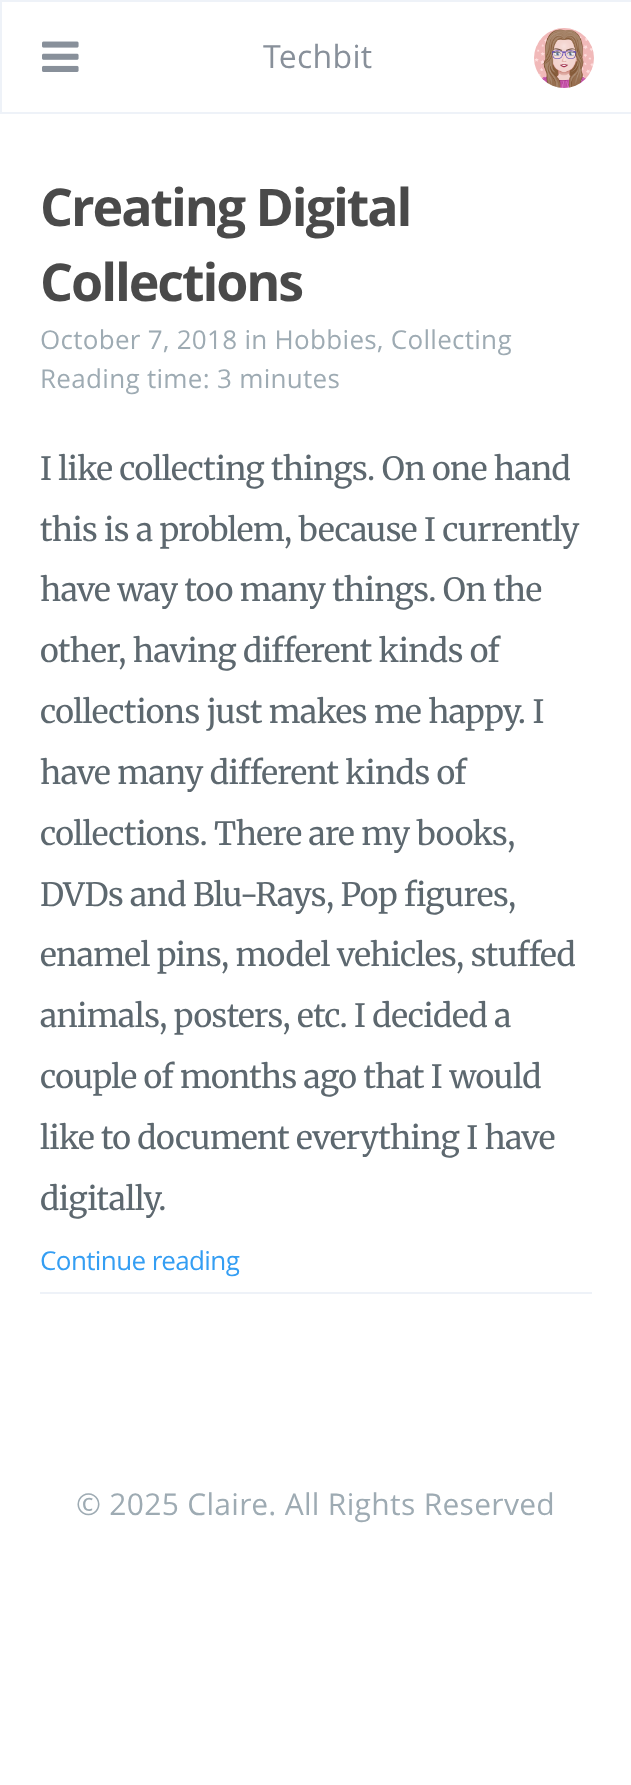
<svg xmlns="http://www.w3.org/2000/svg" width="631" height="1785">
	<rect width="100%" height="100%" fill="#FFFFFF" />
	<rect x="1" y="1" width="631" height="112" fill="none" stroke="#EEF2F8" stroke-width="2" />
	<image x="42" y="41" width="37" height="31" href="assets/img1.png" />
	<text x="263" y="68" font-family="Open Sans" font-size="32" letter-spacing="0.3" fill="#88909A">Techbit</text>
	<image x="534" y="28" width="60" height="60" href="assets/img2.png" />
	<rect x="40" y="1292" width="552" height="2" fill="#EEF2F8" />
	<g font-family="Open Sans" font-size="52" font-weight="700" letter-spacing="-2.1" fill="#4A4A4A">
		<text x="40" y="226">Creating Digital</text>
		<text x="40" y="301">Collections</text>
	</g>
	<g font-family="Open Sans" font-size="26" letter-spacing="0.3" fill="#9EABB3">
		<text x="40" y="349">October 7, 2018 in Hobbies, Collecting</text>
		<text x="40" y="388">Reading time: 3 minutes</text>
	</g>
	<g font-family="Merriweather" font-size="32" letter-spacing="-0.6" fill="#5D686F">
		<text x="40" y="480">I like collecting things. On one hand</text>
		<text x="40" y="541">this is a problem, because I currently</text>
		<text x="40" y="601">have way too many things. On the</text>
		<text x="40" y="662">other, having different kinds of</text>
		<text x="40" y="723">collections just makes me happy. I</text>
		<text x="40" y="784">have many different kinds of</text>
		<text x="40" y="845">collections. There are my books,</text>
		<text x="40" y="906">DVDs and Blu-Rays, Pop figures,</text>
		<text x="40" y="966">enamel pins, model vehicles, stuffed</text>
		<text x="40" y="1027">animals, posters, etc. I decided a</text>
		<text x="40" y="1088">couple of months ago that I would</text>
		<text x="40" y="1149">like to document everything I have</text>
		<text x="40" y="1210">digitally.</text>
	</g>
	<text x="40" y="1270" font-family="Open Sans" font-size="26" letter-spacing="-0.6" fill="#349EF3">Continue reading</text>
	<text x="76" y="1515" font-family="Open Sans" font-size="30" letter-spacing="0.3" fill="#9EABB3">© 2025 Claire. All Rights Reserved</text>
</svg>
